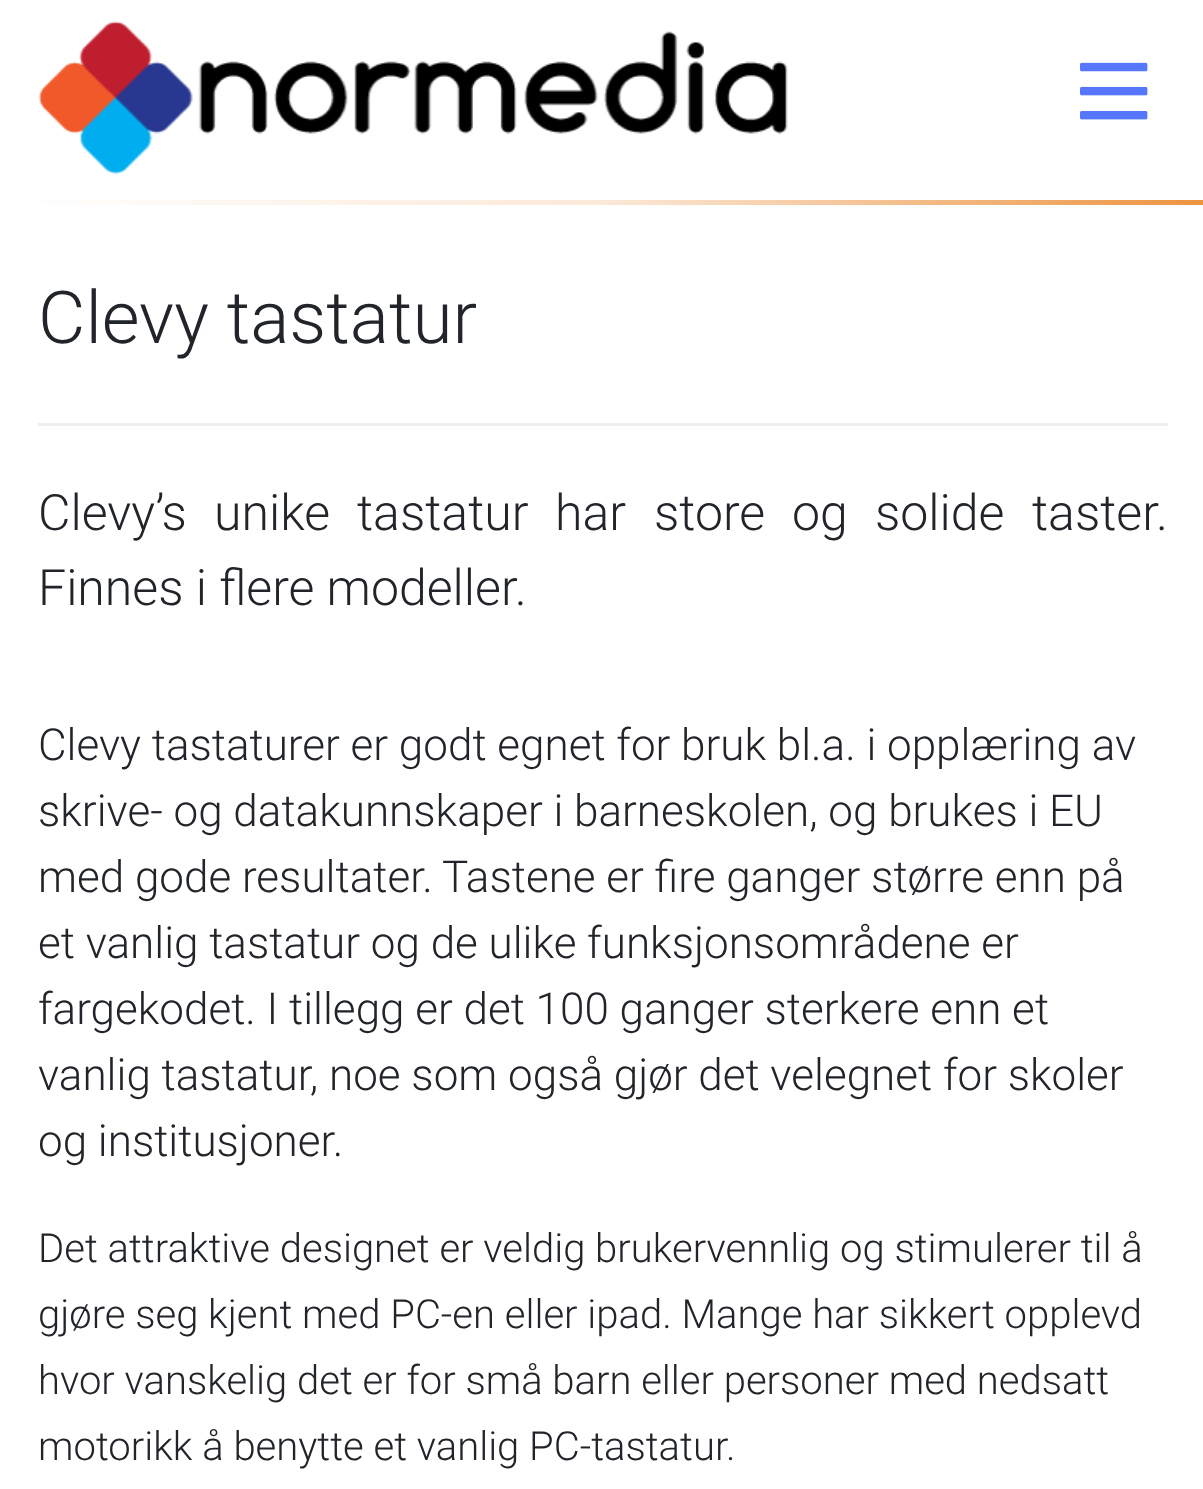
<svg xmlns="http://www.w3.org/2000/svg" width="1203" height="1489">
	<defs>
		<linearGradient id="g1" gradientUnits="userSpaceOnUse" x1="0" y1="203" x2="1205" y2="202"><stop offset="0" stop-color="#FFFFFF" /><stop offset="0.5" stop-color="#FBE9D9" /><stop offset="1" stop-color="#EC9340" /></linearGradient>
	</defs>
	<rect width="100%" height="100%" fill="#FFFFFF" />
	<image x="38" y="21" width="750" height="153" href="assets/img1.png" />
	<image x="1080" y="62" width="68" height="58" href="assets/img2.png" />
	<rect x="40" y="200" width="1163" height="5" fill="url(#g1)" />
	<rect x="38" y="423" width="1130" height="3" fill="#EEEEEE" />
	<text x="38" y="343" font-family="Roboto" font-size="73" font-weight="300" fill="#212529">Clevy tastatur</text>
	<g font-family="Roboto" font-size="50" font-weight="300" fill="#212529">
		<text x="38" y="530">Clevy’s</text>
		<text x="214" y="530">unike</text>
		<text x="357" y="530">tastatur</text>
		<text x="555" y="530">har</text>
		<text x="654" y="530">store</text>
		<text x="792" y="530">og</text>
		<text x="875" y="530">solide</text>
		<text x="1032" y="530">taster.</text>
		<text x="38" y="605">Finnes i flere modeller.</text>
	</g>
	<g font-family="Roboto" font-size="44" font-weight="300" fill="#212529">
		<text x="38" y="760">Clevy tastaturer er godt egnet for bruk bl.a. i opplæring av</text>
		<text x="38" y="826">skrive- og datakunnskaper i barneskolen, og brukes i EU</text>
		<text x="38" y="892">med gode resultater.</text>
		<text x="442" y="892">Tastene er fire ganger større enn på</text>
		<text x="38" y="958">et vanlig tastatur og de ulike funksjonsområdene er</text>
		<text x="38" y="1024">fargekodet. I tillegg er det 100 ganger sterkere enn et</text>
		<text x="38" y="1090">vanlig tastatur, noe som også gjør det velegnet for skoler</text>
		<text x="38" y="1156">og institusjoner.</text>
	</g>
	<g font-family="Roboto" font-size="40" font-weight="300" fill="#212529">
		<text x="38" y="1262">Det attraktive designet er veldig brukervennlig og stimulerer til å</text>
		<text x="38" y="1328">gjøre seg kjent med PC-en eller ipad. Mange har sikkert opplevd</text>
		<text x="38" y="1394">hvor vanskelig det er for små barn eller personer med nedsatt</text>
		<text x="38" y="1460">motorikk å benytte et vanlig PC-tastatur.</text>
	</g>
</svg>
